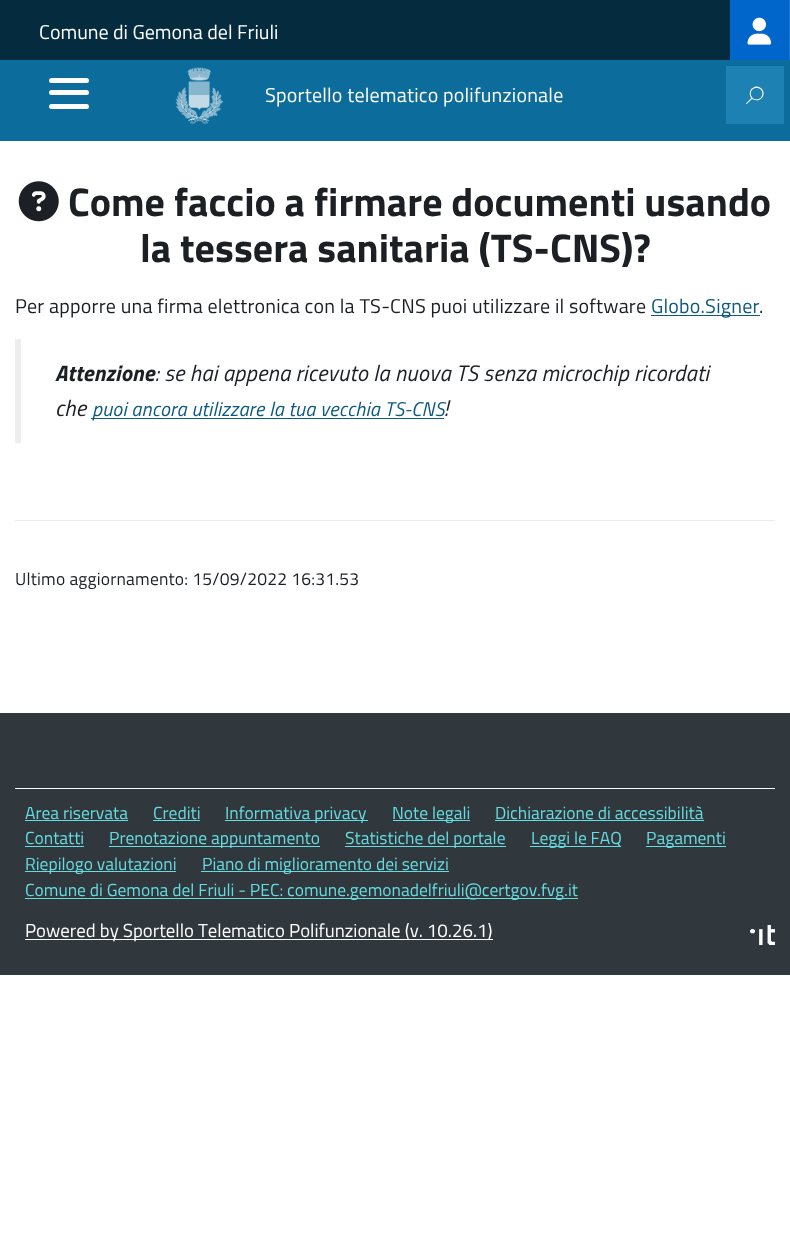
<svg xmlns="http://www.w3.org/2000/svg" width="790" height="1245">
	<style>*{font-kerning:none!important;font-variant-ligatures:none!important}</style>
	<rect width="100%" height="100%" fill="#FFFFFF" />
	<rect x="0" y="0" width="730" height="60" fill="#052B3E" />
	<text x="39" y="39" font-family="Titillium Web" font-size="20" fill="#FFFFFF">Comune di Gemona del Friuli</text>
	<rect x="730" y="0" width="59" height="60" fill="#0066CC" />
	<rect x="789" y="0" width="1" height="60" fill="#1A75D1" />
	<image x="747" y="17" width="25" height="28" href="assets/img1.png" />
	<rect x="0" y="60" width="790" height="81" fill="#0C6C9B" />
	<rect x="49" y="90" width="40" height="5" rx="2.5" fill="#FFFFFF" />
	<rect x="49" y="78" width="40" height="5" rx="2.5" fill="#FFFFFF" />
	<rect x="49" y="104" width="40" height="5" rx="2.5" fill="#FFFFFF" />
	<image x="175" y="67" width="49" height="57" href="assets/img2.png" />
	<text x="265" y="102" font-family="Titillium Web" font-size="20" letter-spacing="0.2" fill="#FFFFFF">Sportello telematico polifunzionale</text>
	<rect x="726" y="66" width="58" height="58" fill="#1E81B3" />
	<text x="746" y="103" font-family="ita" font-size="17.5" fill="#FFFFFF">🔍</text>
	<image x="18" y="181" width="41" height="41" href="assets/img3.png" />
	<g font-family="Titillium Web" font-size="40" font-weight="700" fill="#1C2024">
		<text x="68" y="216">Come faccio a firmare documenti usando</text>
		<text x="140" y="262">la tessera sanitaria (TS-CNS)?</text>
	</g>
	<text x="15" y="313" font-family="Titillium Web" font-size="20" letter-spacing="0.2" fill="#1C2024">Per apporre una firma elettronica con la TS-CNS puoi utilizzare il software</text>
	<rect x="651" y="315" width="109" height="1" fill="#0D5980" />
	<text x="651" y="313" font-family="Titillium Web" font-size="20" letter-spacing="0.2" fill="#0D5980">Globo.Signer</text>
	<text x="759" y="313" font-family="Titillium Web" font-size="20" letter-spacing="0.2" fill="#1C2024">.</text>
	<rect x="15" y="339" width="6" height="104" fill="#EEEEEE" />
	<text x="55" y="381" font-family="Titillium Web" font-size="22.5" font-weight="700" font-style="italic" letter-spacing="0.2" fill="#1C2024">Attenzione</text>
	<g font-family="Titillium Web" font-size="22.5" font-style="italic" letter-spacing="0.2" fill="#1C2024">
		<text x="155" y="381">: se hai appena ricevuto la nuova TS senza microchip ricordati</text>
		<text x="55" y="416">che</text>
	</g>
	<rect x="91" y="418" width="353" height="1" fill="#0D5980" />
	<text x="92" y="416" font-family="Titillium Web" font-size="20" font-style="italic" letter-spacing="0.2" fill="#0D5980">puoi ancora utilizzare la tua vecchia TS-CNS</text>
	<text x="444" y="416" font-family="Titillium Web" font-size="22.5" font-style="italic" letter-spacing="0.2" fill="#1C2024">!</text>
	<rect x="15" y="520" width="760" height="1" fill="#ECECEC" />
	<text x="15" y="585" font-family="Titillium Web" font-size="17.5" letter-spacing="0.2" fill="#1C2024">Ultimo aggiornamento: 15/09/2022 16:31.53</text>
	<rect x="0" y="713" width="790" height="262" fill="#30373D" />
	<rect x="15" y="788" width="760" height="1" fill="#FFFFFF" />
	<text x="25" y="819" font-family="Titillium Web" font-size="17.5" fill="#65DCDF">Area riservata</text>
	<rect x="25" y="820" width="103" height="1" fill="#65DCDF" />
	<text x="153" y="819" font-family="Titillium Web" font-size="17.5" fill="#65DCDF">Crediti</text>
	<rect x="153" y="820" width="47" height="1" fill="#65DCDF" />
	<rect x="225" y="820" width="143" height="1" fill="#65DCDF" />
	<text x="225" y="819" font-family="Titillium Web" font-size="17.5" fill="#65DCDF">Informativa privacy</text>
	<rect x="393" y="820" width="77" height="1" fill="#65DCDF" />
	<g font-family="Titillium Web" font-size="17.5" fill="#65DCDF">
		<text x="392" y="819">Note legali</text>
		<text x="495" y="819">Dichiarazione di accessibilità</text>
	</g>
	<rect x="495" y="820" width="209" height="1" fill="#65DCDF" />
	<text x="25" y="844" font-family="Titillium Web" font-size="17.5" fill="#65DCDF">Contatti</text>
	<rect x="25" y="846" width="59" height="1" fill="#65DCDF" />
	<rect x="109" y="846" width="211" height="1" fill="#65DCDF" />
	<text x="109" y="844" font-family="Titillium Web" font-size="17.5" fill="#65DCDF">Prenotazione appuntamento</text>
	<rect x="345" y="846" width="161" height="1" fill="#65DCDF" />
	<text x="345" y="844" font-family="Titillium Web" font-size="17.5" fill="#65DCDF">Statistiche del portale</text>
	<rect x="530" y="846" width="91" height="1" fill="#65DCDF" />
	<text x="531" y="844" font-family="Titillium Web" font-size="17.5" fill="#65DCDF">Leggi le FAQ</text>
	<rect x="646" y="846" width="80" height="1" fill="#65DCDF" />
	<text x="646" y="844" font-family="Titillium Web" font-size="17.5" fill="#65DCDF">Pagamenti</text>
	<rect x="25" y="871" width="151" height="1" fill="#65DCDF" />
	<text x="25" y="870" font-family="Titillium Web" font-size="17.5" fill="#65DCDF">Riepilogo valutazioni</text>
	<rect x="201" y="871" width="248" height="1" fill="#65DCDF" />
	<text x="202" y="870" font-family="Titillium Web" font-size="17.5" fill="#65DCDF">Piano di miglioramento dei servizi</text>
	<rect x="25" y="898" width="553" height="1" fill="#65DCDF" />
	<text x="25" y="896" font-family="Titillium Web" font-size="17.5" fill="#65DCDF">Comune di Gemona del Friuli - PEC: comune.gemonadelfriuli@certgov.fvg.it</text>
	<rect x="25" y="939" width="468" height="1" fill="#FFFFFF" />
	<text x="25" y="937" font-family="Titillium Web" font-size="18.75" fill="#FFFFFF">Powered by Sportello Telematico Polifunzionale (v. 10.26.1)</text>
	<image x="750" y="925" width="25" height="20" href="assets/img4.png" />
</svg>
